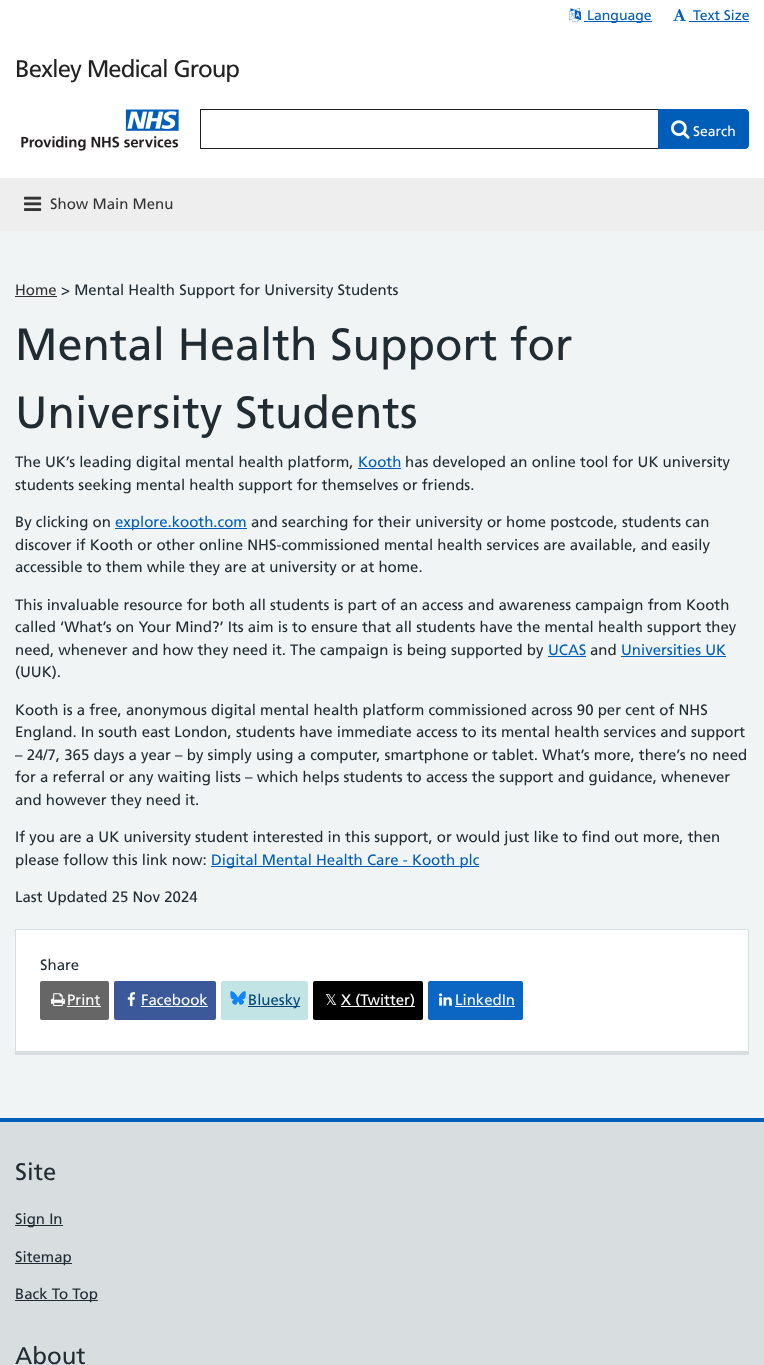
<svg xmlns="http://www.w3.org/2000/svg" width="764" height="1365">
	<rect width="100%" height="100%" fill="#F0F4F5" />
	<rect x="0" y="0" width="764" height="178" fill="#FFFFFF" />
	<image x="569" y="8" width="12" height="14" href="assets/img1.png" />
	<rect x="584" y="21" width="68" height="1" fill="#005EB8" />
	<text x="587" y="20" font-family="Frutiger" font-size="14" fill="#005EB8">Language</text>
	<image x="673" y="9" width="13" height="12" href="assets/img2.png" />
	<text x="693" y="20" font-family="Frutiger" font-size="14" fill="#005EB8">Text Size</text>
	<rect x="689" y="21" width="60" height="1" fill="#005EB8" />
	<text x="15" y="77" font-family="Frutiger" font-size="24" letter-spacing="-1" fill="#222222">Bexley Medical Group</text>
	<image x="21" y="109" width="158" height="42" href="assets/img3.png" />
	<rect x="200.5" y="109.5" width="458" height="39" fill="none" stroke="#231F20" />
	<path d="M658.5 109.5H745C747 109.5 748.5 111 748.5 113V145C748.5 147 747 148.5 745 148.5H658.5Z" fill="#005EB8" stroke="#005EB8" />
	<image x="671" y="120" width="19" height="19" href="assets/img4.png" />
	<text x="693" y="136" font-family="Frutiger" font-size="14" fill="#FFFFFF">Search</text>
	<rect x="0" y="178" width="764" height="53" fill="#EEEEEE" />
	<image x="24" y="196" width="18" height="15" href="assets/img5.png" />
	<g font-family="Frutiger" font-size="15" fill="#333333">
		<text x="50" y="209">Show Main Menu</text>
		<text x="15" y="295">Home</text>
	</g>
	<rect x="15" y="296" width="42" height="1" fill="#333333" />
	<text x="61" y="295" font-family="Frutiger" font-size="15" fill="#212B32">&gt; Mental Health Support for University Students</text>
	<g font-family="Frutiger" font-size="45" fill="#212B32">
		<text x="15" y="360">Mental Health Support for</text>
		<text x="15" y="428">University Students</text>
	</g>
	<text x="15" y="467" font-family="Frutiger" font-size="15" fill="#212B32">The UK’s leading digital mental health platform,</text>
	<text x="358" y="467" font-family="Frutiger" font-size="15" fill="#005EB8">Kooth</text>
	<rect x="358" y="468" width="43" height="1" fill="#005EB8" />
	<g font-family="Frutiger" font-size="15" fill="#212B32">
		<text x="405" y="467">has developed an online tool for UK university</text>
		<text x="15" y="490">students seeking mental health support for themselves or friends.</text>
		<text x="15" y="527">By clicking on</text>
	</g>
	<rect x="115" y="528" width="132" height="1" fill="#005EB8" />
	<text x="115" y="527" font-family="Frutiger" font-size="15" fill="#005EB8">explore.kooth.com</text>
	<g font-family="Frutiger" font-size="15" fill="#212B32">
		<text x="251" y="527">and searching for their university or home postcode, students can</text>
		<text x="15" y="550">discover if Kooth or other online NHS-commissioned mental health services are available, and easily</text>
		<text x="15" y="572">accessible to them while they are at university or at home.</text>
		<text x="15" y="610">This invaluable resource for both all students is part of an access and awareness campaign from Kooth</text>
		<text x="15" y="632">called ‘What’s on Your Mind?’ Its aim is to ensure that all students have the mental health support they</text>
		<text x="15" y="655">need, whenever and how they need it. The campaign is being supported by</text>
	</g>
	<text x="548" y="655" font-family="Frutiger" font-size="15" fill="#005EB8">UCAS</text>
	<rect x="548" y="656" width="38" height="1" fill="#005EB8" />
	<text x="590" y="655" font-family="Frutiger" font-size="15" fill="#212B32">and</text>
	<text x="621" y="655" font-family="Frutiger" font-size="15" fill="#005EB8">Universities UK</text>
	<rect x="621" y="656" width="105" height="1" fill="#005EB8" />
	<g font-family="Frutiger" font-size="15" fill="#212B32">
		<text x="15" y="677">(UUK).</text>
		<text x="15" y="715">Kooth is a free, anonymous digital mental health platform commissioned across 90 per cent of NHS</text>
		<text x="15" y="737">England. In south east London, students have immediate access to its mental health services and support</text>
		<text x="15" y="760">– 24/7, 365 days a year – by simply using a computer, smartphone or tablet. What’s more, there’s no need</text>
		<text x="15" y="782">for a referral or any waiting lists – which helps students to access the support and guidance, whenever</text>
		<text x="15" y="805">and however they need it.</text>
		<text x="15" y="842">If you are a UK university student interested in this support, or would just like to find out more, then</text>
		<text x="15" y="865">please follow this link now:</text>
	</g>
	<rect x="211" y="866" width="268" height="1" fill="#005EB8" />
	<text x="211" y="865" font-family="Frutiger" font-size="15" fill="#005EB8">Digital Mental Health Care - Kooth plc</text>
	<text x="15" y="902" font-family="Frutiger" font-size="15" fill="#212B32">Last Updated 25 Nov 2024</text>
	<rect x="16" y="930" width="732" height="121" fill="#FFFFFF" />
	<rect x="15" y="929" width="734" height="1" fill="#D8DDE0" />
	<rect x="748" y="929" width="1" height="126" fill="#D8DDE0" />
	<rect x="15" y="1051" width="734" height="4" fill="#D8DDE0" />
	<rect x="15" y="929" width="1" height="126" fill="#D8DDE0" />
	<text x="40" y="970" font-family="Frutiger" font-size="15" fill="#212B32">Share</text>
	<rect x="40" y="981" width="69" height="39" rx="2" fill="#666666" />
	<image x="51" y="993" width="14" height="14" href="assets/img6.png" />
	<text x="67" y="1005" font-family="Frutiger" font-size="15" fill="#FFFFFF">Print</text>
	<rect x="67" y="1006" width="34" height="1" fill="#FFFFFF" />
	<rect x="114" y="981" width="102" height="39" rx="2" fill="#3B5998" />
	<image x="127" y="992" width="9" height="15" href="assets/img7.png" />
	<text x="141" y="1005" font-family="Frutiger" font-size="15" fill="#FFFFFF">Facebook</text>
	<rect x="141" y="1006" width="67" height="1" fill="#FFFFFF" />
	<rect x="221" y="981" width="87" height="39" rx="2" fill="#C2E4E5" />
	<image x="230" y="991" width="16" height="14" href="assets/img8.png" />
	<rect x="248" y="1006" width="52" height="1" fill="#044777" />
	<text x="248" y="1005" font-family="Frutiger" font-size="15" fill="#044777">Bluesky</text>
	<rect x="313" y="981" width="110" height="39" rx="2" fill="#000000" />
	<text x="325" y="1005" font-family="DejaVu Sans" font-size="15" fill="#FFFFFF">𝕏</text>
	<rect x="341" y="1006" width="74" height="1" fill="#FFFFFF" />
	<text x="341" y="1005" font-family="Frutiger" font-size="15" fill="#FFFFFF">X (Twitter)</text>
	<rect x="428" y="981" width="95" height="39" rx="2" fill="#0A66C2" />
	<image x="439" y="993" width="13" height="13" href="assets/img9.png" />
	<text x="455" y="1005" font-family="Frutiger" font-size="15" fill="#FFFFFF">LinkedIn</text>
	<rect x="455" y="1006" width="60" height="1" fill="#FFFFFF" />
	<rect x="0" y="1122" width="764" height="243" fill="#D8DDE0" />
	<rect x="0" y="1118" width="764" height="4" fill="#005EB8" />
	<text x="15" y="1180" font-family="Frutiger" font-size="24" fill="#212B32">Site</text>
	<rect x="15" y="1225" width="48" height="1" fill="#212B32" />
	<text x="15" y="1224" font-family="Frutiger" font-size="15" fill="#212B32">Sign In</text>
	<rect x="15" y="1263" width="57" height="1" fill="#212B32" />
	<text x="15" y="1262" font-family="Frutiger" font-size="15" fill="#212B32">Sitemap</text>
	<rect x="15" y="1300" width="83" height="1" fill="#212B32" />
	<text x="15" y="1299" font-family="Frutiger" font-size="15" fill="#212B32">Back To Top</text>
	<text x="15" y="1364" font-family="Frutiger" font-size="24" fill="#212B32">About</text>
</svg>
